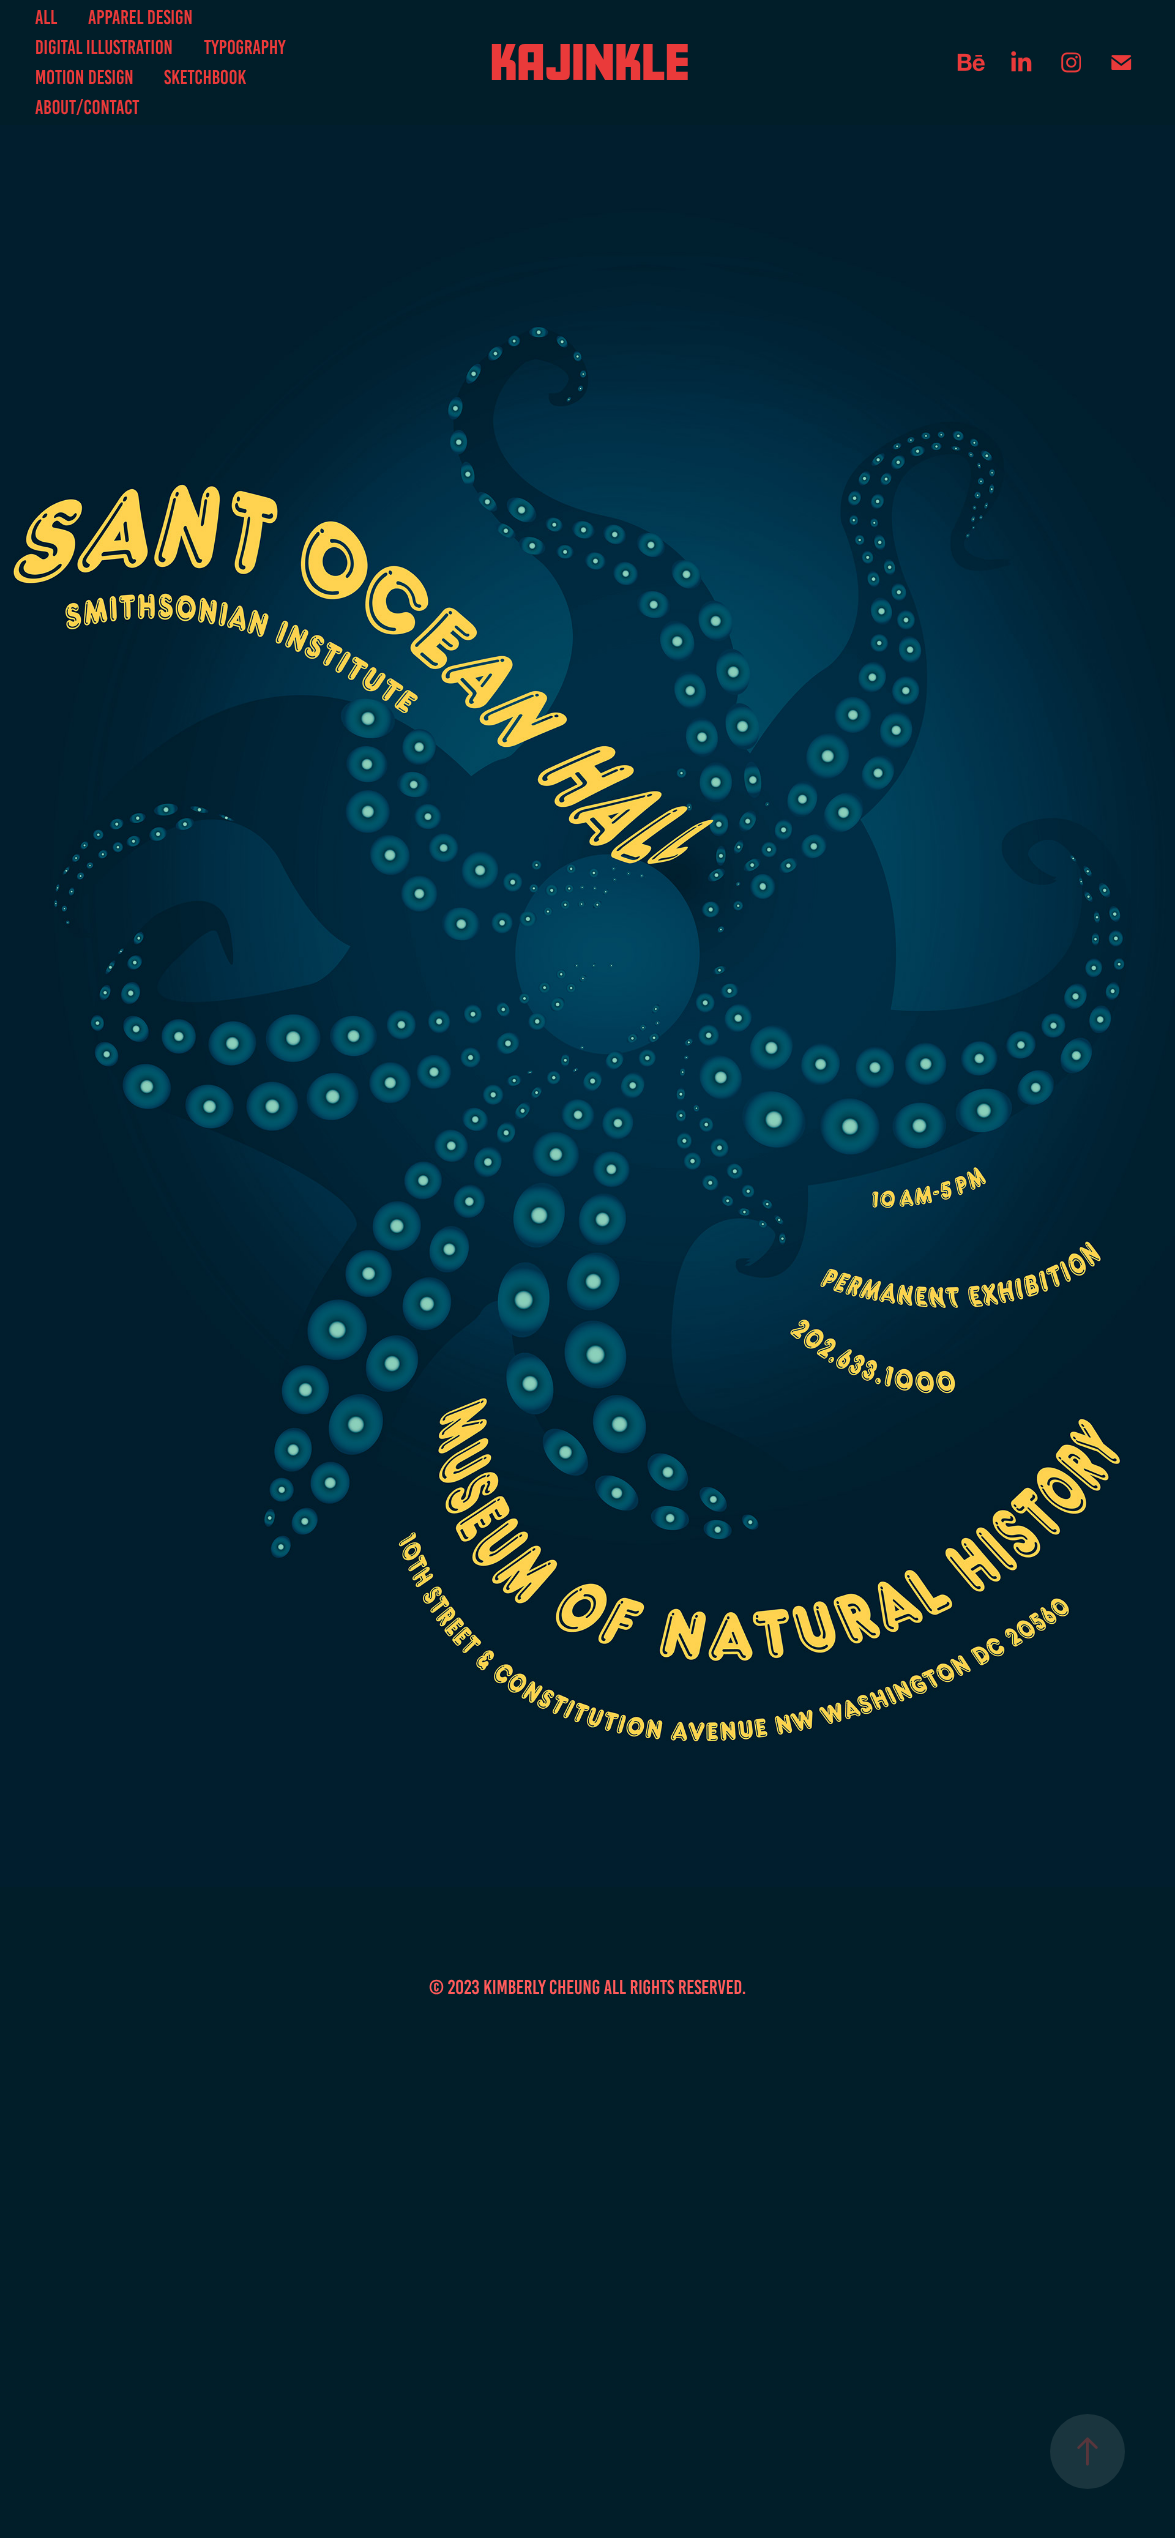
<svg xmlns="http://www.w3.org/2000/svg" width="1175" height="2538">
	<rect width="100%" height="100%" fill="#011E29" />
	<g font-family="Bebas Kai" font-size="20" fill="#EA3A3A">
		<text x="35" y="24">ALL</text>
		<text x="88" y="24">APPAREL DESIGN</text>
		<text x="35" y="54">DIGITAL ILLUSTRATION</text>
		<text x="204" y="54">TYPOGRAPHY</text>
		<text x="35" y="84">MOTION DESIGN</text>
		<text x="164" y="84">SKETCHBOOK</text>
		<text x="35" y="114">ABOUT/CONTACT</text>
	</g>
	<text x="490" y="80" font-family="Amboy" font-size="45" font-weight="900" fill="#EA3A3A">KAJINKLE</text>
	<image x="957" y="53" width="28" height="19" href="assets/img1.png" />
	<image x="1011" y="51" width="21" height="21" href="assets/img2.png" />
	<image x="1061" y="52" width="20" height="21" href="assets/img3.png" />
	<image x="1111" y="55" width="21" height="15" href="assets/img4.png" />
	<image x="0" y="125" width="1175" height="1762" href="assets/img5.png" />
	<circle cx="1087.5" cy="2451.5" r="37.5" fill="#1A353E" />
	<image x="1077" y="2437" width="21" height="29" href="assets/img6.png" />
	<text x="429" y="1994" font-family="Bebas Kai" font-size="20" fill="#FF5B5B">© 2023 Kimberly Cheung All Rights Reserved.</text>
</svg>
